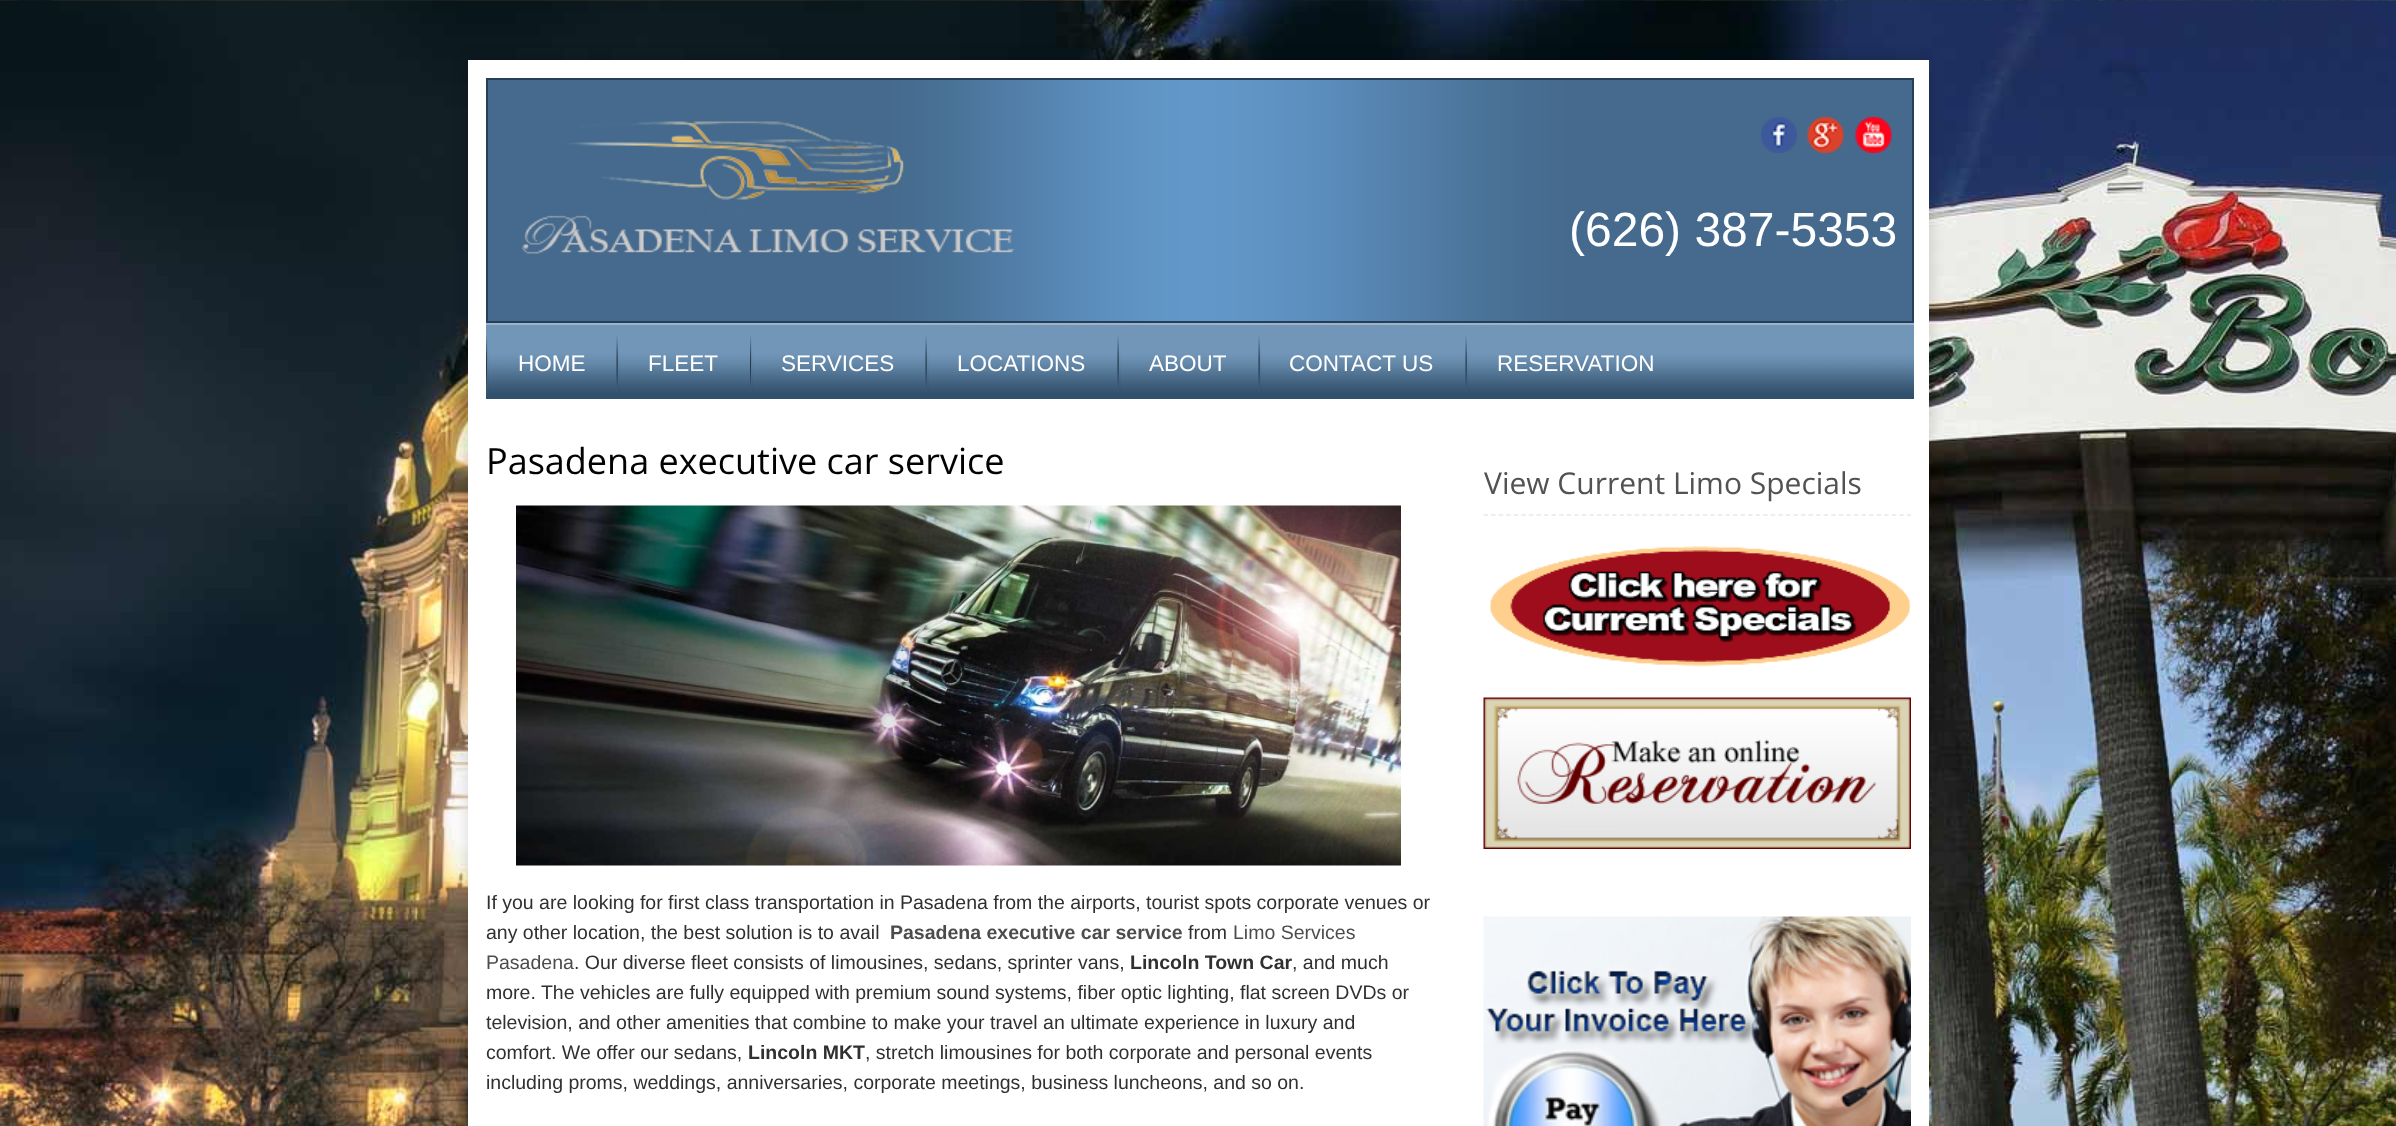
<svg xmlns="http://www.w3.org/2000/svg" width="2396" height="1126">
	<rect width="100%" height="100%" fill="#FFFFFF" />
	<image x="0" y="0" width="2396" height="1126" href="assets/img1.png" />
	<rect x="468" y="60" width="1461" height="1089" fill="#000000" fill-opacity="0.17" filter="blur(7.5px)" />
	<rect x="468" y="60" width="1461" height="1066" fill="#FFFFFF" />
	<image x="488" y="80" width="1424" height="241" href="assets/img2.png" />
	<rect x="487" y="79" width="1426" height="243" fill="none" stroke="#233F5A" stroke-width="2" />
	<image x="521" y="121" width="494" height="133" href="assets/img3.png" />
	<image x="1761" y="117" width="36" height="36" href="assets/img4.png" />
	<image x="1807" y="117" width="37" height="36" href="assets/img5.png" />
	<image x="1855" y="117" width="37" height="36" href="assets/img6.png" />
	<text x="1569" y="246" font-family="Liberation Sans" font-size="48" fill="#FFFFFF">(626) 387-5353</text>
	<image x="486" y="325" width="1428" height="74" href="assets/img7.png" />
	<rect x="486" y="323" width="1428" height="2" fill="#A0B3C6" />
	<image x="486" y="335" width="3" height="57" href="assets/img8.png" />
	<image x="487" y="336" width="2" height="56" href="assets/img9.png" />
	<text x="518" y="371" font-family="Liberation Sans" font-size="22.5" fill="#FFFFFF">HOME</text>
	<image x="616" y="335" width="4" height="57" href="assets/img10.png" />
	<image x="618" y="338" width="2" height="54" href="assets/img11.png" />
	<text x="648" y="371" font-family="Liberation Sans" font-size="22.5" fill="#FFFFFF">FLEET</text>
	<image x="750" y="335" width="3" height="57" href="assets/img8.png" />
	<image x="751" y="336" width="2" height="56" href="assets/img12.png" />
	<text x="781" y="371" font-family="Liberation Sans" font-size="22.5" fill="#FFFFFF">SERVICES</text>
	<image x="925" y="335" width="4" height="57" href="assets/img10.png" />
	<image x="927" y="338" width="2" height="54" href="assets/img13.png" />
	<text x="957" y="371" font-family="Liberation Sans" font-size="22.5" fill="#FFFFFF">LOCATIONS</text>
	<image x="1117" y="335" width="4" height="57" href="assets/img10.png" />
	<image x="1119" y="338" width="2" height="54" href="assets/img14.png" />
	<text x="1149" y="371" font-family="Liberation Sans" font-size="22.5" fill="#FFFFFF">ABOUT</text>
	<image x="1258" y="335" width="4" height="57" href="assets/img10.png" />
	<image x="1260" y="338" width="2" height="54" href="assets/img15.png" />
	<text x="1289" y="371" font-family="Liberation Sans" font-size="22.5" fill="#FFFFFF">CONTACT US</text>
	<image x="1465" y="335" width="4" height="57" href="assets/img10.png" />
	<image x="1467" y="338" width="2" height="54" href="assets/img16.png" />
	<text x="1497" y="371" font-family="Liberation Sans" font-size="22.5" fill="#FFFFFF">RESERVATION</text>
	<text x="486" y="474" font-family="Open Sans" font-size="36" fill="#010101">Pasadena executive car service</text>
	<image x="516" y="505" width="885" height="361" href="assets/img17.png" />
	<g font-family="Liberation Sans" font-size="19.5" fill="#312F2F">
		<text x="486" y="909">If you are looking for first class transportation in Pasadena from the airports, tourist spots corporate venues or</text>
		<text x="486" y="939">any other location, the best solution is to avail</text>
	</g>
	<text x="890" y="939" font-family="Liberation Sans" font-size="19.5" font-weight="700" fill="#4D4C4C">Pasadena executive car service</text>
	<text x="1188" y="939" font-family="Liberation Sans" font-size="19.5" fill="#312F2F">from</text>
	<g font-family="Liberation Sans" font-size="19.5" fill="#4D4C4C">
		<text x="1233" y="939">Limo Services</text>
		<text x="486" y="969">Pasadena</text>
	</g>
	<text x="574" y="969" font-family="Liberation Sans" font-size="19.5" fill="#312F2F">. Our diverse fleet consists of limousines, sedans, sprinter vans,</text>
	<text x="1130" y="969" font-family="Liberation Sans" font-size="19.5" font-weight="700" fill="#312F2F">Lincoln Town Car</text>
	<g font-family="Liberation Sans" font-size="19.5" fill="#312F2F">
		<text x="1292" y="969">, and much</text>
		<text x="486" y="999">more. The vehicles are fully equipped with premium sound systems, fiber optic lighting, flat screen DVDs or</text>
		<text x="486" y="1029">television, and other amenities that combine to make your travel an ultimate experience in luxury and</text>
		<text x="486" y="1059">comfort. We offer our sedans,</text>
	</g>
	<text x="748" y="1059" font-family="Liberation Sans" font-size="19.5" font-weight="700" fill="#312F2F">Lincoln MKT</text>
	<g font-family="Liberation Sans" font-size="19.5" fill="#312F2F">
		<text x="865" y="1059">, stretch limousines for both corporate and personal events</text>
		<text x="486" y="1089">including proms, weddings, anniversaries, corporate meetings, business luncheons, and so on.</text>
	</g>
	<path d="M1483.5 515H1911" fill="none" stroke="#E8E8E8" stroke-width="1.5" stroke-dasharray="4.5 3.06" />
	<text x="1484" y="494" font-family="Open Sans" font-size="30" fill="#525252">View Current Limo Specials</text>
	<image x="1489" y="546" width="422" height="121" href="assets/img18.png" />
	<image x="1483" y="697" width="428" height="152" href="assets/img19.png" />
	<image x="1483" y="916" width="428" height="210" href="assets/img20.png" />
</svg>
